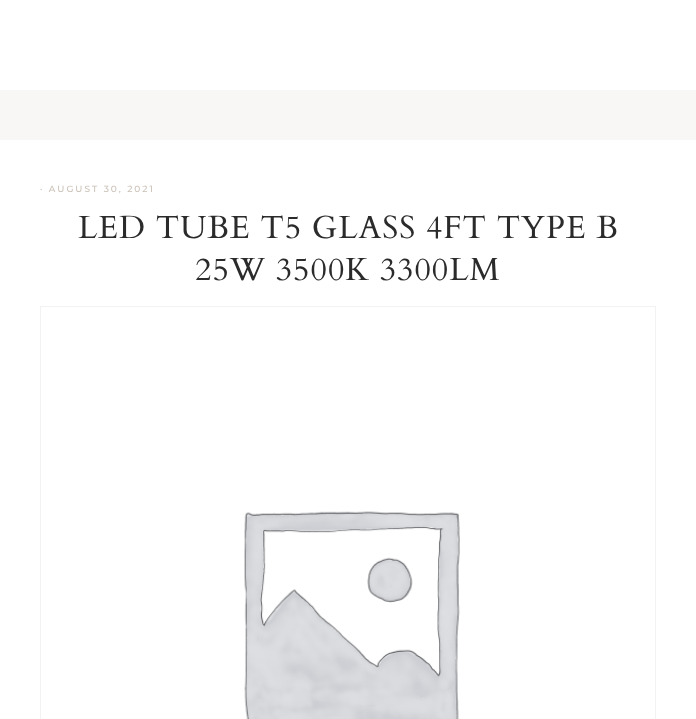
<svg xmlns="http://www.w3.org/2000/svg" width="696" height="719">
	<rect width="100%" height="100%" fill="#FFFFFF" />
	<rect x="0" y="90" width="696" height="50" fill="#F9F7F6" />
	<text x="40" y="192" font-family="Montserrat" font-size="9" font-weight="100" letter-spacing="2" fill="#CAC1B7">· AUGUST 30, 2021</text>
	<g font-family="Cardo" font-size="32" letter-spacing="1" fill="#2B2B2B">
		<text x="78" y="238">LED TUBE T5 GLASS 4FT TYPE B</text>
		<text x="195" y="280">25W 3500K 3300LM</text>
	</g>
	<rect x="40.5" y="306.5" width="615" height="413" fill="none" stroke="#F2F2F2" />
	<image x="244" y="511" width="216" height="208" href="assets/img1.png" />
</svg>
